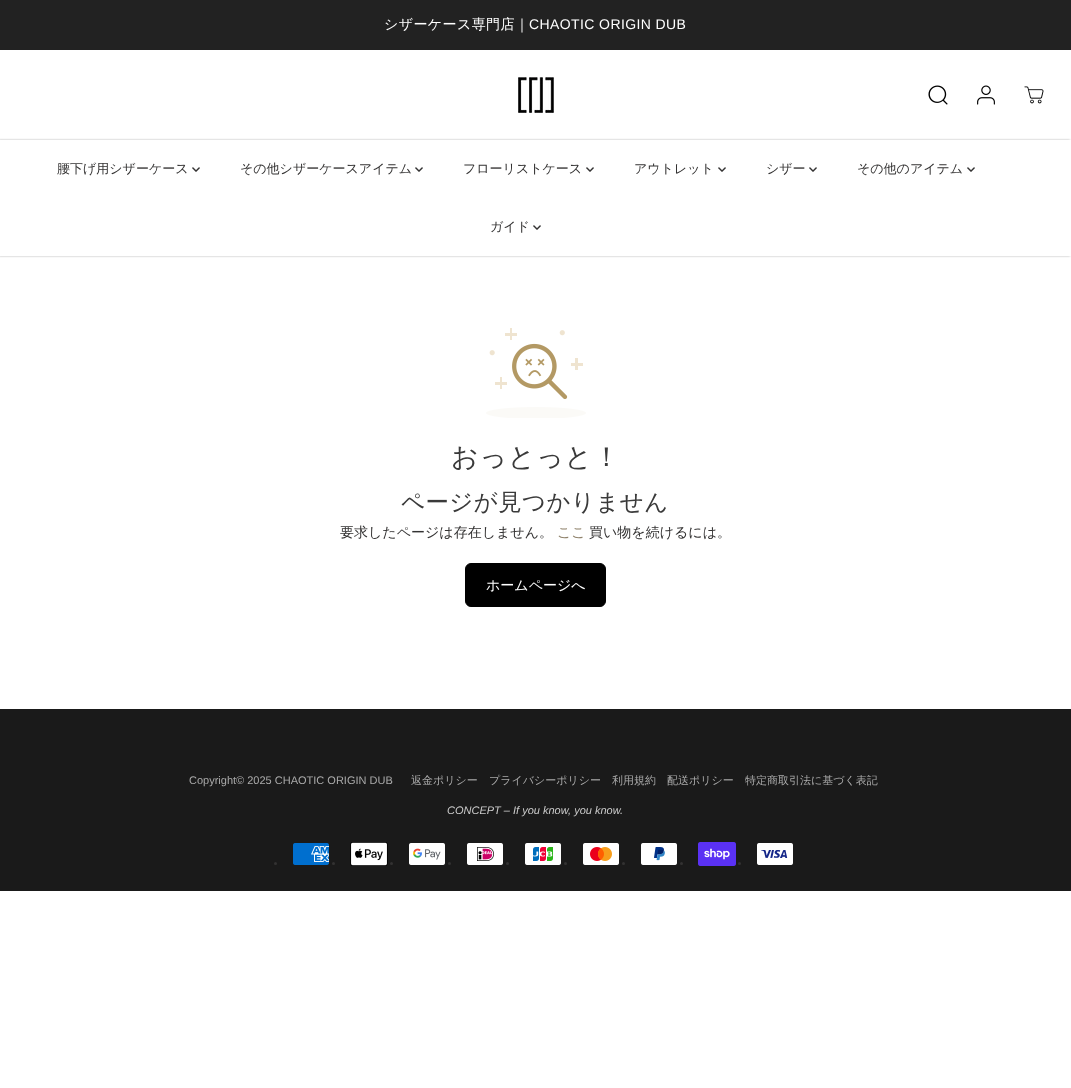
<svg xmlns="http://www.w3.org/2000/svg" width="1071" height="1088">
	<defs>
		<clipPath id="clip1"><path d="M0 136H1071V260H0ZM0 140H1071V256H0Z" clip-rule="evenodd" /></clipPath>
	</defs>
	<rect width="100%" height="100%" fill="#FFFFFF" />
	<rect x="0" y="0" width="1071" height="50" fill="#222222" />
	<text x="384" y="29" font-family="WenQuanYi Zen Hei" font-size="14" font-weight="500" letter-spacing="0.4" fill="#FFFFFF">シザーケース専門店｜</text>
	<text x="529" y="29" font-family="Liberation Sans" font-size="14" letter-spacing="0.4" fill="#FFFFFF">CHAOTIC ORIGIN DUB</text>
	<image x="518" y="77" width="36" height="36" href="assets/img1.png" />
	<image x="928" y="85" width="20" height="20" href="assets/img2.png" />
	<image x="977" y="85" width="18" height="20" href="assets/img3.png" />
	<image x="1024" y="86" width="20" height="18" href="assets/img4.png" />
	<g clip-path="url(#clip1)">
		<rect x="-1" y="140" width="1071" height="116" fill="#000000" fill-opacity="0.3" filter="blur(1px)" />
	</g>
	<text x="57" y="173" font-family="WenQuanYi Zen Hei" font-size="13" font-weight="500" fill="#333232">腰下げ用シザーケース</text>
	<image x="192" y="167" width="8" height="5" href="assets/img5.png" />
	<text x="240" y="173" font-family="WenQuanYi Zen Hei" font-size="13" font-weight="500" fill="#333232">その他シザーケースアイテム</text>
	<image x="415" y="167" width="8" height="5" href="assets/img5.png" />
	<text x="463" y="173" font-family="WenQuanYi Zen Hei" font-size="13" font-weight="500" fill="#333232">フローリストケース</text>
	<image x="586" y="167" width="8" height="5" href="assets/img5.png" />
	<text x="634" y="173" font-family="WenQuanYi Zen Hei" font-size="13" font-weight="500" fill="#333232">アウトレット</text>
	<image x="718" y="167" width="8" height="5" href="assets/img5.png" />
	<text x="766" y="173" font-family="WenQuanYi Zen Hei" font-size="13" font-weight="500" fill="#333232">シザー</text>
	<image x="809" y="167" width="8" height="5" href="assets/img5.png" />
	<text x="857" y="173" font-family="WenQuanYi Zen Hei" font-size="13" font-weight="500" fill="#333232">その他のアイテム</text>
	<image x="967" y="167" width="8" height="5" href="assets/img5.png" />
	<text x="490" y="231" font-family="WenQuanYi Zen Hei" font-size="13" font-weight="500" fill="#333232">ガイド</text>
	<image x="533" y="225" width="8" height="5" href="assets/img5.png" />
	<image x="486" y="328" width="100" height="90" href="assets/img6.png" />
	<text x="451" y="466" font-family="WenQuanYi Zen Hei" font-size="27" font-weight="500" letter-spacing="0.75" fill="#3A3A3A">おっとっと！</text>
	<text x="401" y="510" font-family="WenQuanYi Zen Hei" font-size="23.4" font-weight="500" letter-spacing="0.5" fill="#3A3A3A">ページが見つかりません</text>
	<text x="340" y="537" font-family="WenQuanYi Zen Hei" font-size="14" font-weight="500" fill="#333232">要求したページは存在しません。</text>
	<text x="557" y="537" font-family="WenQuanYi Zen Hei" font-size="14" font-weight="500" fill="#8F826B">ここ</text>
	<text x="589" y="537" font-family="WenQuanYi Zen Hei" font-size="14" font-weight="500" fill="#333232">買い物を続けるには。</text>
	<rect x="465.5" y="563.5" width="140" height="43" rx="5.5" fill="#000000" stroke="#000000" />
	<text x="486" y="590" font-family="WenQuanYi Zen Hei" font-size="14" font-weight="500" fill="#FFFFFF">ホームページへ</text>
	<rect x="0" y="709" width="1071" height="182" fill="#1A1A1A" />
	<text x="189" y="784" font-family="Liberation Sans" font-size="11" fill="#AAAAAA">Copyright© 2025 CHAOTIC ORIGIN DUB</text>
	<g font-family="WenQuanYi Zen Hei" font-size="11" font-weight="500" fill="#AAAAAA">
		<text x="411" y="784">返金ポリシー</text>
		<text x="489" y="784">プライバシーポリシー</text>
		<text x="612" y="784">利用規約</text>
		<text x="667" y="784">配送ポリシー</text>
		<text x="745" y="784">特定商取引法に基づく表記</text>
	</g>
	<text x="447" y="814" font-family="Liberation Sans" font-size="11" font-style="italic" fill="#CCCCCC">CONCEPT – If you know, you know.</text>
	<circle cx="275.5" cy="863.5" r="1.5" fill="#333232" />
	<image x="293" y="843" width="36" height="22" href="assets/img7.png" />
	<circle cx="333.5" cy="863.5" r="1.5" fill="#333232" />
	<image x="350" y="842" width="38" height="24" href="assets/img8.png" />
	<circle cx="391.5" cy="863.5" r="1.5" fill="#333232" />
	<image x="409" y="843" width="36" height="22" href="assets/img9.png" />
	<circle cx="449.5" cy="863.5" r="1.5" fill="#333232" />
	<image x="467" y="843" width="36" height="22" href="assets/img10.png" />
	<circle cx="507.5" cy="863.5" r="1.5" fill="#333232" />
	<image x="525" y="843" width="36" height="22" href="assets/img11.png" />
	<circle cx="565.5" cy="863.5" r="1.5" fill="#333232" />
	<image x="583" y="843" width="36" height="22" href="assets/img12.png" />
	<circle cx="623.5" cy="863.5" r="1.5" fill="#333232" />
	<image x="641" y="843" width="36" height="22" href="assets/img13.png" />
	<circle cx="681.5" cy="863.5" r="1.5" fill="#333232" />
	<image x="698" y="842" width="38" height="24" href="assets/img14.png" />
	<circle cx="739.5" cy="863.5" r="1.5" fill="#333232" />
	<image x="757" y="843" width="36" height="22" href="assets/img15.png" />
</svg>
